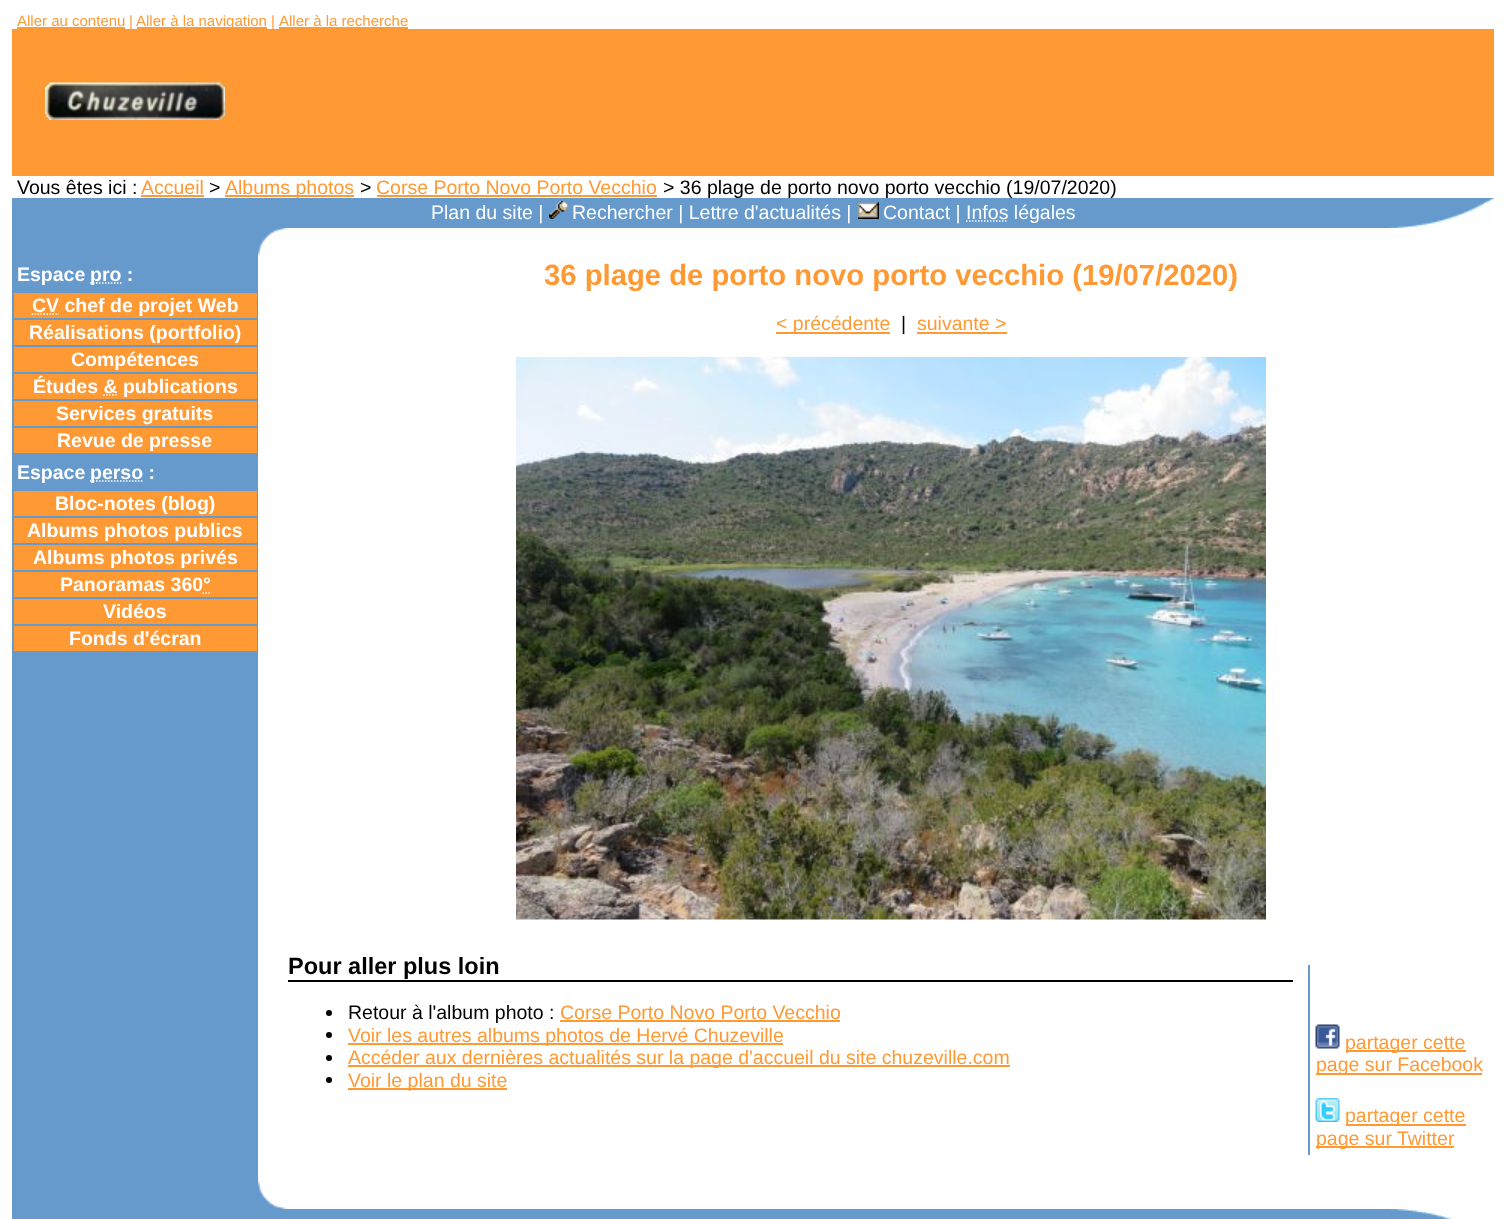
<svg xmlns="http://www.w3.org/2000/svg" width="1505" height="1219">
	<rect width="100%" height="100%" fill="#FFFFFF" />
	<text x="17" y="26" font-family="Liberation Sans" font-size="15" fill="#FF9933">Aller au contenu</text>
	<rect x="17" y="27" width="108" height="2" fill="#FF9933" />
	<rect x="12" y="29" width="1482" height="147" fill="#FF9933" />
	<text x="129" y="26" font-family="Liberation Sans" font-size="15" fill="#FF9933">|</text>
	<rect x="137" y="27" width="130" height="2" fill="#FF9933" />
	<g font-family="Liberation Sans" font-size="15" fill="#FF9933">
		<text x="136" y="26">Aller à la navigation</text>
		<text x="271" y="26">|</text>
		<text x="279" y="26">Aller à la recherche</text>
	</g>
	<rect x="279" y="27" width="129" height="2" fill="#FF9933" />
	<image x="45" y="82" width="180" height="38" href="assets/img1.png" />
	<text x="17" y="194" font-family="Liberation Sans" font-size="19.5" fill="#000000">Vous êtes ici :</text>
	<text x="141" y="194" font-family="Liberation Sans" font-size="19.5" fill="#FF9933">Accueil</text>
	<rect x="141" y="195" width="63" height="2" fill="#FF9933" />
	<text x="209" y="194" font-family="Liberation Sans" font-size="19.5" fill="#000000">&gt;</text>
	<rect x="225" y="195" width="129" height="2" fill="#FF9933" />
	<rect x="12" y="198" width="1480" height="30" fill="#6699CC" />
	<text x="225" y="194" font-family="Liberation Sans" font-size="19.5" fill="#FF9933">Albums photos</text>
	<text x="360" y="194" font-family="Liberation Sans" font-size="19.5" fill="#000000">&gt;</text>
	<text x="376" y="194" font-family="Liberation Sans" font-size="19.5" fill="#FF9933">Corse Porto Novo Porto Vecchio</text>
	<rect x="377" y="195" width="280" height="2" fill="#FF9933" />
	<text x="663" y="194" font-family="Liberation Sans" font-size="19.5" fill="#000000">&gt; 36 plage de porto novo porto vecchio (19/07/2020)</text>
	<image x="1390" y="198" width="104" height="30" href="assets/img2.png" />
	<text x="431" y="219" font-family="Liberation Sans" font-size="19.5" fill="#FFFFFF">Plan du site |</text>
	<image x="549" y="201" width="20" height="18" href="assets/img3.png" />
	<text x="572" y="219" font-family="Liberation Sans" font-size="19.5" fill="#FFFFFF">Rechercher | Lettre d'actualités |</text>
	<image x="858" y="202" width="21" height="17" href="assets/img4.png" />
	<text x="883" y="219" font-family="Liberation Sans" font-size="19.5" fill="#FFFFFF">Contact | Infos légales</text>
	<path d="M966 221H1008" fill="none" stroke="#FFFFFF" stroke-width="1.5" stroke-dasharray="1.5 1.5" />
	<rect x="12" y="228" width="246" height="981" fill="#6699CC" />
	<text x="17" y="281" font-family="Liberation Sans" font-size="19.5" font-weight="700" fill="#FFFFFF">Espace</text>
	<path d="M90 283H121.5" fill="none" stroke="#FFFFFF" stroke-width="1.5" stroke-dasharray="1.5 1.5" />
	<text x="90" y="281" font-family="Liberation Sans" font-size="19.5" font-weight="700" fill="#FFFFFF">pro :</text>
	<rect x="14" y="293" width="243" height="25" fill="#FF9933" />
	<path d="M31.5 314H59" fill="none" stroke="#FFFFFF" stroke-width="1.5" stroke-dasharray="1.5 1.5" />
	<text x="32" y="312" font-family="Liberation Sans" font-size="19.5" font-weight="700" fill="#FFFFFF">CV chef de projet Web</text>
	<rect x="14" y="320" width="243" height="25" fill="#FF9933" />
	<text x="29" y="339" font-family="Liberation Sans" font-size="19.5" font-weight="700" fill="#FFFFFF">Réalisations (portfolio)</text>
	<rect x="14" y="347" width="243" height="25" fill="#FF9933" />
	<text x="71" y="366" font-family="Liberation Sans" font-size="19.5" font-weight="700" fill="#FFFFFF">Compétences</text>
	<rect x="14" y="374" width="243" height="25" fill="#FF9933" />
	<text x="33" y="393" font-family="Liberation Sans" font-size="19.5" font-weight="700" fill="#FFFFFF">Études &amp; publications</text>
	<path d="M103 395H117" fill="none" stroke="#FFFFFF" stroke-width="1.5" stroke-dasharray="1.5 1.5" />
	<rect x="14" y="401" width="243" height="25" fill="#FF9933" />
	<text x="56" y="420" font-family="Liberation Sans" font-size="19.5" font-weight="700" fill="#FFFFFF">Services gratuits</text>
	<rect x="14" y="428" width="243" height="25" fill="#FF9933" />
	<g font-family="Liberation Sans" font-size="19.5" font-weight="700" fill="#FFFFFF">
		<text x="57" y="447">Revue de presse</text>
		<text x="17" y="479">Espace</text>
	</g>
	<path d="M90 481H143.5" fill="none" stroke="#FFFFFF" stroke-width="1.5" stroke-dasharray="1.5 1.5" />
	<text x="90" y="479" font-family="Liberation Sans" font-size="19.5" font-weight="700" fill="#FFFFFF">perso :</text>
	<rect x="14" y="491" width="243" height="25" fill="#FF9933" />
	<text x="55" y="510" font-family="Liberation Sans" font-size="19.5" font-weight="700" fill="#FFFFFF">Bloc-notes (blog)</text>
	<rect x="14" y="518" width="243" height="25" fill="#FF9933" />
	<text x="27" y="537" font-family="Liberation Sans" font-size="19.5" font-weight="700" fill="#FFFFFF">Albums photos publics</text>
	<rect x="14" y="545" width="243" height="25" fill="#FF9933" />
	<text x="33" y="564" font-family="Liberation Sans" font-size="19.5" font-weight="700" fill="#FFFFFF">Albums photos privés</text>
	<rect x="14" y="572" width="243" height="25" fill="#FF9933" />
	<text x="60" y="591" font-family="Liberation Sans" font-size="19.5" font-weight="700" fill="#FFFFFF">Panoramas 360°</text>
	<path d="M202.5 593H204M205.5 593H207M208.5 593H210" fill="none" stroke="#FFFFFF" stroke-width="1.5" />
	<rect x="14" y="599" width="243" height="25" fill="#FF9933" />
	<text x="103" y="618" font-family="Liberation Sans" font-size="19.5" font-weight="700" fill="#FFFFFF">Vidéos</text>
	<rect x="14" y="626" width="243" height="25" fill="#FF9933" />
	<text x="69" y="645" font-family="Liberation Sans" font-size="19.5" font-weight="700" fill="#FFFFFF">Fonds d'écran</text>
	<rect x="258" y="228" width="23" height="23" fill="#6699CC" />
	<image x="258" y="228" width="30" height="30" href="assets/img5.png" />
	<text x="544" y="285" font-family="Liberation Sans" font-size="29.25" font-weight="700" fill="#FF9933">36 plage de porto novo porto vecchio (19/07/2020)</text>
	<rect x="776" y="332" width="114" height="2" fill="#FF9933" />
	<text x="776" y="330" font-family="Liberation Sans" font-size="19.5" fill="#FF9933">&lt; précédente</text>
	<text x="901" y="330" font-family="Liberation Sans" font-size="19.5" fill="#000000">|</text>
	<text x="917" y="330" font-family="Liberation Sans" font-size="19.5" fill="#FF9933">suivante &gt;</text>
	<rect x="917" y="332" width="90" height="2" fill="#FF9933" />
	<image x="516" y="357" width="750" height="563" href="assets/img6.png" />
	<rect x="288" y="980" width="1005" height="2" fill="#000000" />
	<text x="288" y="974" font-family="Liberation Sans" font-size="23.5" font-weight="700" fill="#000000">Pour aller plus loin</text>
	<circle cx="329" cy="1013" r="3" fill="#000000" />
	<text x="348" y="1019" font-family="Liberation Sans" font-size="19.5" fill="#000000">Retour à l'album photo :</text>
	<text x="560" y="1019" font-family="Liberation Sans" font-size="19.5" fill="#FF9933">Corse Porto Novo Porto Vecchio</text>
	<rect x="560" y="1020" width="280" height="2" fill="#FF9933" />
	<circle cx="329" cy="1035" r="3" fill="#000000" />
	<rect x="348" y="1043" width="435" height="2" fill="#FF9933" />
	<text x="348" y="1042" font-family="Liberation Sans" font-size="19.5" fill="#FF9933">Voir les autres albums photos de Hervé Chuzeville</text>
	<circle cx="329" cy="1058" r="3" fill="#000000" />
	<rect x="348" y="1065" width="662" height="2" fill="#FF9933" />
	<text x="348" y="1064" font-family="Liberation Sans" font-size="19.5" fill="#FF9933">Accéder aux dernières actualités sur la page d'accueil du site chuzeville.com</text>
	<circle cx="329" cy="1080" r="3" fill="#000000" />
	<rect x="348" y="1088" width="159" height="2" fill="#FF9933" />
	<text x="348" y="1087" font-family="Liberation Sans" font-size="19.5" fill="#FF9933">Voir le plan du site</text>
	<rect x="1308" y="965" width="2" height="190" fill="#6699CC" />
	<image x="1315" y="1024" width="25" height="25" href="assets/img7.png" />
	<rect x="1346" y="1050" width="120" height="2" fill="#FF9933" />
	<text x="1345" y="1049" font-family="Liberation Sans" font-size="19.5" fill="#FF9933">partager cette</text>
	<rect x="1316" y="1073" width="166" height="2" fill="#FF9933" />
	<text x="1316" y="1071" font-family="Liberation Sans" font-size="19.5" fill="#FF9933">page sur Facebook</text>
	<image x="1315" y="1098" width="25" height="24" href="assets/img8.png" />
	<rect x="1346" y="1124" width="120" height="2" fill="#FF9933" />
	<text x="1345" y="1122" font-family="Liberation Sans" font-size="19.5" fill="#FF9933">partager cette</text>
	<rect x="1316" y="1146" width="138" height="2" fill="#FF9933" />
	<text x="1316" y="1145" font-family="Liberation Sans" font-size="19.5" fill="#FF9933">page sur Twitter</text>
	<rect x="258" y="1186" width="23" height="23" fill="#6699CC" />
	<image x="258" y="1179" width="30" height="30" href="assets/img9.png" />
	<rect x="12" y="1209" width="1435" height="10" fill="#6699CC" />
	<image x="1390" y="1209" width="104" height="10" href="assets/img10.png" />
</svg>
